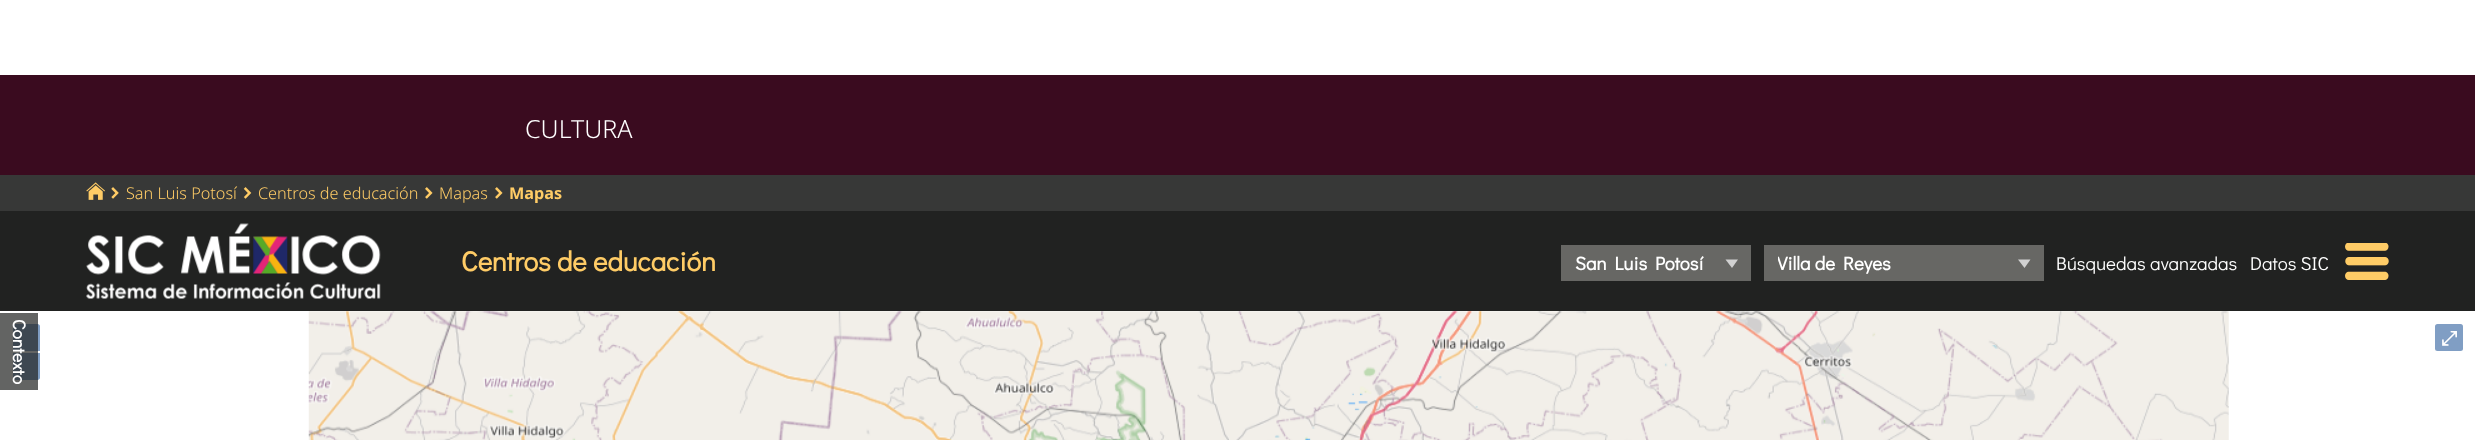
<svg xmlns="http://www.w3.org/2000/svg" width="2475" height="440">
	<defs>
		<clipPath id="clip1"><rect x="1778" y="250" width="240" height="26" /></clipPath>
	</defs>
	<rect width="100%" height="100%" fill="#FFFFFF" />
	<rect x="0" y="75" width="2475" height="100" fill="#3A0B1F" />
	<text x="525" y="138" font-family="Noto Sans" font-size="25" font-weight="300" fill="#FFFFFF">CULTURA</text>
	<rect x="0" y="175" width="2475" height="36" fill="#373837" />
	<image x="86" y="182" width="19" height="18" href="assets/img1.png" />
	<image x="111" y="187" width="8" height="12" href="assets/img2.png" />
	<text x="126" y="199" font-family="Noto Sans" font-size="16.25" font-weight="300" fill="#FFCC66">San Luis Potosí</text>
	<image x="243" y="187" width="9" height="12" href="assets/img3.png" />
	<text x="258" y="199" font-family="Noto Sans" font-size="16.25" font-weight="300" fill="#FFCC66">Centros de educación</text>
	<image x="425" y="187" width="8" height="12" href="assets/img4.png" />
	<text x="439" y="199" font-family="Noto Sans" font-size="16.25" font-weight="300" fill="#FFCC66">Mapas</text>
	<image x="495" y="187" width="8" height="12" href="assets/img4.png" />
	<text x="509" y="199" font-family="Noto Sans" font-size="16.25" font-weight="700" fill="#FFCC66">Mapas</text>
	<rect x="0" y="211" width="2475" height="100" fill="#212221" />
	<image x="86" y="223" width="295" height="76" href="assets/img5.png" />
	<text x="461" y="271" font-family="Didact Gothic" font-size="27.5" font-weight="700" fill="#FFCC66">Centros de educación</text>
	<rect x="1561" y="245" width="190" height="36" fill="#676764" />
	<path d="M1725.5 259.5L1732 268L1738 259.5Z" fill="#D1D1D1" />
	<text x="1575" y="270" font-family="Didact Gothic" font-size="18.75" font-weight="700" fill="#FFFFFF">San Luis Potosí</text>
	<rect x="1764" y="245" width="280" height="36" fill="#676764" />
	<path d="M2018 259.5L2024.5 268L2030.5 259.5Z" fill="#D1D1D1" />
	<g clip-path="url(#clip1)">
		<text x="1777" y="270" font-family="Didact Gothic" font-size="18.75" font-weight="700" fill="#FFFFFF">Villa de Reyes</text>
	</g>
	<g font-family="Didact Gothic" font-size="18.75" fill="#FFFFFF">
		<text x="2056" y="270">Búsquedas avanzadas</text>
		<text x="2250" y="270">Datos SIC</text>
	</g>
	<image x="2345" y="243" width="44" height="37" href="assets/img6.png" />
	<path d="M15.5 324H37.5C39 324 40 325 40 326.5V351H13V326.5C13 325 14 324 15.5 324Z" fill="#809EC4" />
	<path d="M13 353H40V377.5C40 379 39 380 37.5 380H15.5C14 380 13 379 13 377.5Z" fill="#809EC4" />
	<rect x="0" y="313" width="38" height="77" fill="#212221" fill-opacity="0.7" />
	<text x="13" y="319" transform="rotate(90 13 319)" font-family="Didact Gothic" font-size="17.5" font-weight="700" fill="#FFFFFF">Contexto</text>
	<image x="308" y="311" width="1921" height="129" href="assets/img7.png" />
	<rect x="2435" y="324" width="28" height="27" rx="2.5" fill="#809EC4" />
	<text x="2441" y="345" font-family="FreeSerif" font-size="20" font-weight="700" fill="#FFFFFF">⤢</text>
</svg>
